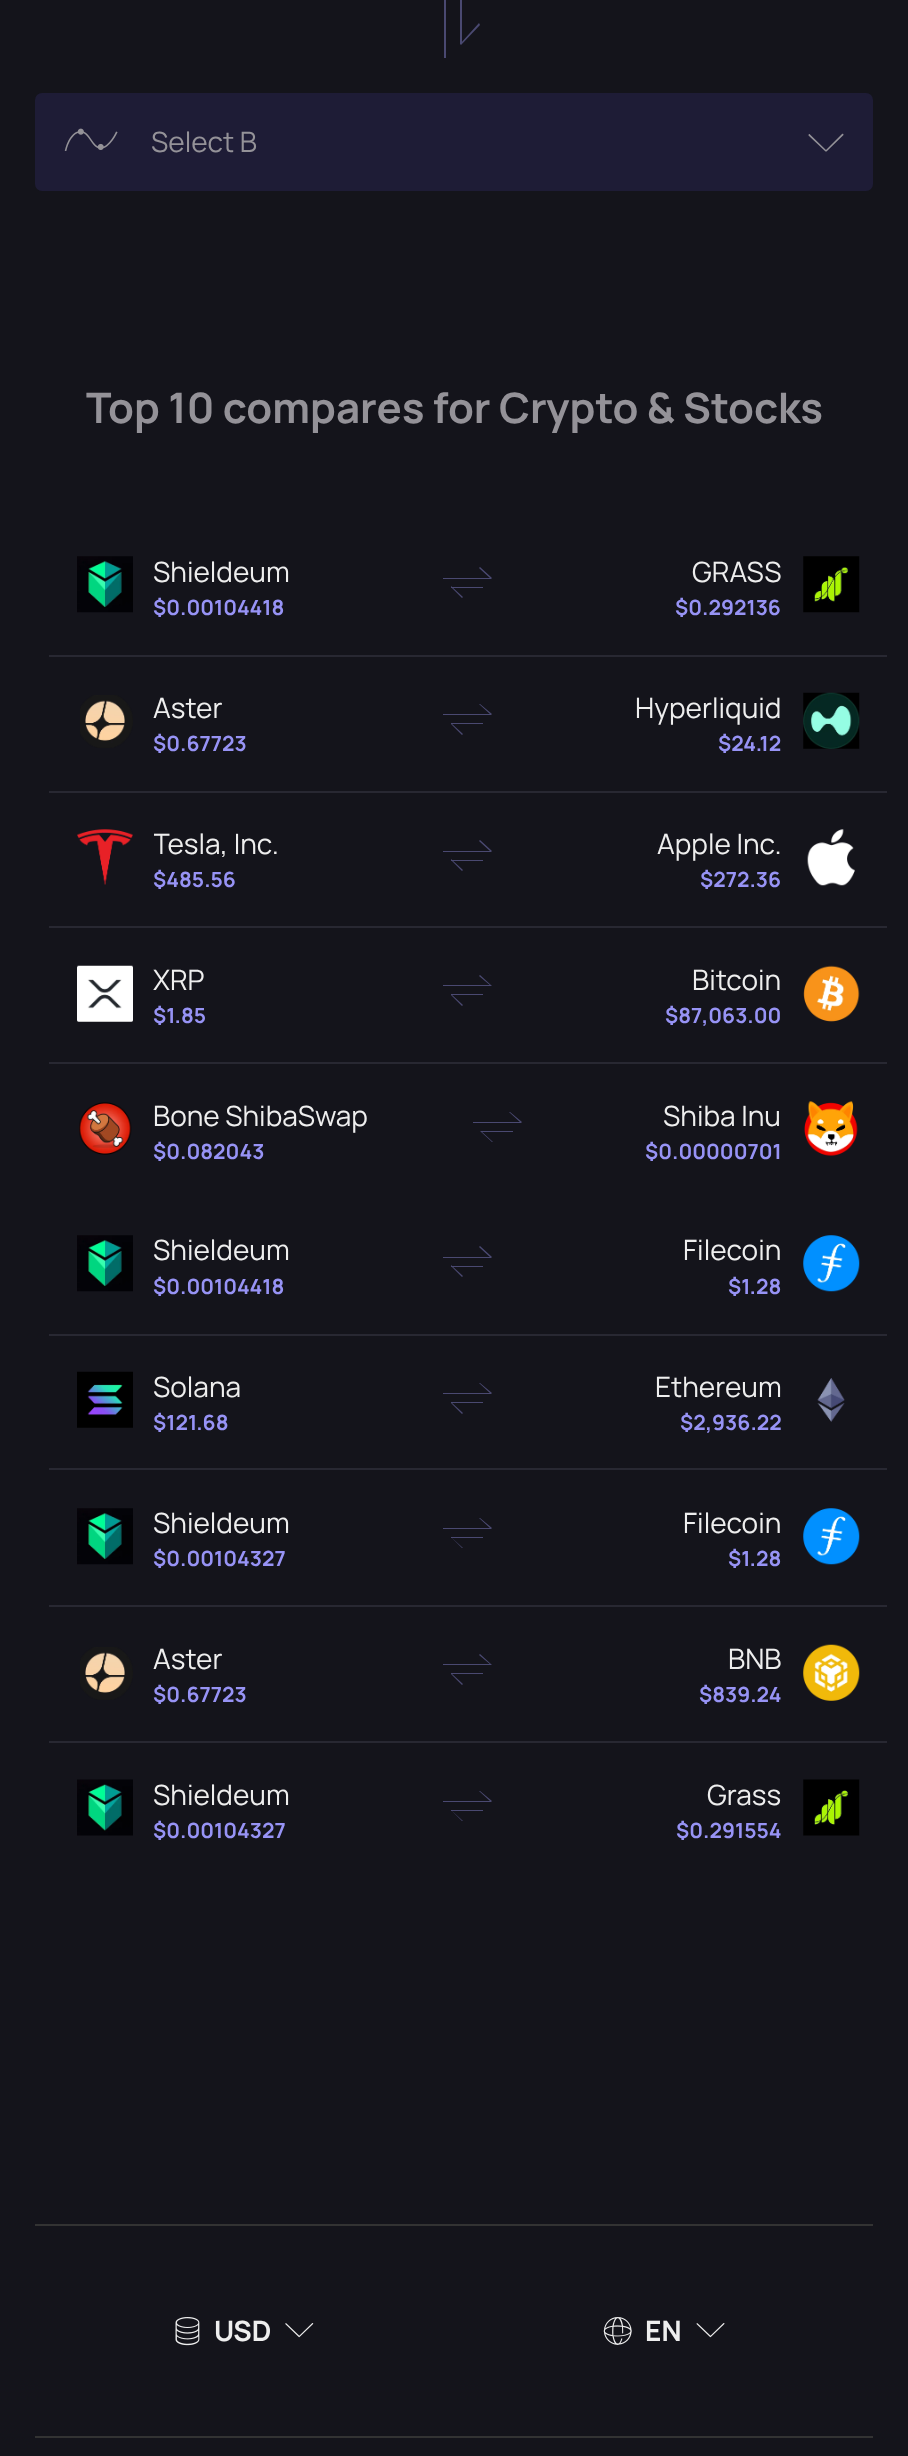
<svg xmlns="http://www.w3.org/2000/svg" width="908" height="2456">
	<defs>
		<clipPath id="clip1"><rect x="154" y="823" width="173" height="42" /></clipPath>
	</defs>
	<rect width="100%" height="100%" fill="#14141B" />
	<path d="M444 58V-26H446V58ZM427-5L426-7L445-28L446-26ZM460 44V-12H462V44ZM461 45L460 44L479 23L480 25Z" fill="#4A4971" />
	<rect x="35" y="93" width="838" height="98" rx="7" fill="#1E1C36" />
	<image x="64" y="128" width="54" height="23" href="assets/img1.png" />
	<text x="151" y="152" font-family="Manrope" font-size="28" font-weight="200" fill="#949298">Select B</text>
	<path d="M808.5 135.5L825.5 151.5H826.5L843.5 135C843.5 134 843 133.5 842 134L826 150L810 134.5C809 133.5 808.5 134.5 808.5 135.5Z" fill="#949298" />
	<text x="86" y="423" font-family="'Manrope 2'" font-size="42" font-weight="200" fill="#949298">Top 10 compares for Crypto &amp; Stocks</text>
	<rect x="49" y="655" width="838" height="2" fill="#282832" />
	<image x="77" y="556" width="56" height="57" href="assets/img2.png" />
	<text x="153" y="582" font-family="Manrope" font-size="28" font-weight="200" fill="#EEEEEE">Shieldeum</text>
	<text x="153" y="615" font-family="'Manrope 2'" font-size="21" font-weight="200" fill="#9793F5">$0.00104418</text>
	<path d="M443 578H491V579H443ZM479 568L480 567L492 578L491 579ZM451 587H483V588H451ZM451 587V586L463 597L462 598Z" fill="#4A4971" />
	<text x="692" y="582" font-family="Manrope" font-size="28" font-weight="200" fill="#EEEEEE">GRASS</text>
	<text x="675" y="615" font-family="'Manrope 2'" font-size="21" font-weight="200" fill="#9793F5">$0.292136</text>
	<image x="803" y="556" width="57" height="57" href="assets/img3.png" />
	<rect x="49" y="791" width="838" height="2" fill="#282832" />
	<image x="80" y="695" width="53" height="53" href="assets/img4.png" />
	<text x="153" y="718" font-family="Manrope" font-size="28" font-weight="200" fill="#EEEEEE">Aster</text>
	<text x="153" y="751" font-family="'Manrope 2'" font-size="21" font-weight="200" fill="#9793F5">$0.67723</text>
	<path d="M443 714H491V715H443ZM479 704H480L492 714L491 715ZM451 723H483V724H451ZM451 724V723L463 734L462 735Z" fill="#4A4971" />
	<text x="635" y="718" font-family="Manrope" font-size="28" font-weight="200" fill="#EEEEEE">Hyperliquid</text>
	<text x="718" y="751" font-family="'Manrope 2'" font-size="21" font-weight="200" fill="#9793F5">$24.12</text>
	<image x="803" y="692" width="57" height="57" href="assets/img5.png" />
	<rect x="49" y="926" width="838" height="2" fill="#282832" />
	<image x="77" y="829" width="56" height="56" href="assets/img6.png" />
	<g clip-path="url(#clip1)">
		<text x="153" y="854" font-family="Manrope" font-size="28" font-weight="200" fill="#EEEEEE">Tesla, Inc.</text>
	</g>
	<text x="153" y="887" font-family="'Manrope 2'" font-size="21" font-weight="200" fill="#9793F5">$485.56</text>
	<path d="M443 851H491V852H443ZM479 841L480 840L492 851L491 852ZM451 860H483V861H451ZM451 860V859L463 870L462 871Z" fill="#4A4971" />
	<text x="657" y="854" font-family="Manrope" font-size="28" font-weight="200" fill="#EEEEEE">Apple Inc.</text>
	<text x="700" y="887" font-family="'Manrope 2'" font-size="21" font-weight="200" fill="#9793F5">$272.36</text>
	<image x="807" y="829" width="48" height="57" href="assets/img7.png" />
	<rect x="49" y="1062" width="838" height="2" fill="#282832" />
	<image x="77" y="965" width="56" height="57" href="assets/img8.png" />
	<text x="153" y="990" font-family="Manrope" font-size="28" font-weight="200" fill="#EEEEEE">XRP</text>
	<text x="153" y="1023" font-family="'Manrope 2'" font-size="21" font-weight="200" fill="#9793F5">$1.85</text>
	<path d="M443 985H491V986H443ZM479 976L480 975L492 986H491ZM451 994H483V995H451ZM451 995V994L463 1005L462 1006Z" fill="#4A4971" />
	<text x="692" y="990" font-family="Manrope" font-size="28" font-weight="200" fill="#EEEEEE">Bitcoin</text>
	<text x="665" y="1023" font-family="'Manrope 2'" font-size="21" font-weight="200" fill="#9793F5">$87,063.00</text>
	<image x="803" y="965" width="57" height="57" href="assets/img9.png" />
	<image x="79" y="1102" width="53" height="53" href="assets/img10.png" />
	<text x="153" y="1126" font-family="Manrope" font-size="28" font-weight="200" fill="#EEEEEE">Bone ShibaSwap</text>
	<text x="153" y="1159" font-family="'Manrope 2'" font-size="21" font-weight="200" fill="#9793F5">$0.082043</text>
	<path d="M473 1122H521V1123H473ZM509 1112H510L522 1122L521 1123ZM481 1131H513V1132H481ZM480 1131H481L493 1142H492Z" fill="#4A4971" />
	<text x="663" y="1126" font-family="Manrope" font-size="28" font-weight="200" fill="#EEEEEE">Shiba Inu</text>
	<text x="645" y="1159" font-family="'Manrope 2'" font-size="21" font-weight="200" fill="#9793F5">$0.00000701</text>
	<image x="804" y="1101" width="54" height="55" href="assets/img11.png" />
	<rect x="49" y="1334" width="838" height="2" fill="#282832" />
	<image x="77" y="1235" width="56" height="57" href="assets/img2.png" />
	<text x="153" y="1260" font-family="Manrope" font-size="28" font-weight="200" fill="#EEEEEE">Shieldeum</text>
	<text x="153" y="1294" font-family="'Manrope 2'" font-size="21" font-weight="200" fill="#9793F5">$0.00104418</text>
	<path d="M443 1257H491V1258H443ZM479 1247L480 1246L492 1257L491 1258ZM451 1266H483V1267H451ZM451 1266V1265L463 1276L462 1277Z" fill="#4A4971" />
	<text x="683" y="1260" font-family="Manrope" font-size="28" font-weight="200" fill="#EEEEEE">Filecoin</text>
	<text x="728" y="1294" font-family="'Manrope 2'" font-size="21" font-weight="200" fill="#9793F5">$1.28</text>
	<image x="803" y="1235" width="57" height="57" href="assets/img12.png" />
	<rect x="49" y="1468" width="838" height="2" fill="#282832" />
	<image x="77" y="1371" width="56" height="57" href="assets/img13.png" />
	<text x="153" y="1397" font-family="Manrope" font-size="28" font-weight="200" fill="#EEEEEE">Solana</text>
	<text x="153" y="1430" font-family="'Manrope 2'" font-size="21" font-weight="200" fill="#9793F5">$121.68</text>
	<path d="M443 1393H491V1394H443ZM479 1383H480L492 1393L491 1394ZM451 1402H483V1403H451ZM451 1403V1402L463 1413L462 1414Z" fill="#4A4971" />
	<text x="655" y="1397" font-family="Manrope" font-size="28" font-weight="200" fill="#EEEEEE">Ethereum</text>
	<text x="680" y="1430" font-family="'Manrope 2'" font-size="21" font-weight="200" fill="#9793F5">$2,936.22</text>
	<image x="817" y="1378" width="28" height="44" href="assets/img14.png" />
	<rect x="49" y="1605" width="838" height="2" fill="#282832" />
	<image x="77" y="1508" width="56" height="57" href="assets/img2.png" />
	<text x="153" y="1533" font-family="Manrope" font-size="28" font-weight="200" fill="#EEEEEE">Shieldeum</text>
	<text x="153" y="1566" font-family="'Manrope 2'" font-size="21" font-weight="200" fill="#9793F5">$0.00104327</text>
	<path d="M443 1528H491V1529H443ZM479 1518H480L492 1528L491 1529ZM451 1537H483V1538H451ZM451 1537L463 1548H462Z" fill="#4A4971" />
	<text x="683" y="1533" font-family="Manrope" font-size="28" font-weight="200" fill="#EEEEEE">Filecoin</text>
	<text x="728" y="1566" font-family="'Manrope 2'" font-size="21" font-weight="200" fill="#9793F5">$1.28</text>
	<image x="803" y="1508" width="57" height="57" href="assets/img12.png" />
	<rect x="49" y="1741" width="838" height="2" fill="#282832" />
	<image x="80" y="1647" width="53" height="53" href="assets/img4.png" />
	<text x="153" y="1669" font-family="Manrope" font-size="28" font-weight="200" fill="#EEEEEE">Aster</text>
	<text x="153" y="1702" font-family="'Manrope 2'" font-size="21" font-weight="200" fill="#9793F5">$0.67723</text>
	<path d="M443 1664H491V1665H443ZM479 1655L480 1654L492 1665H491ZM451 1673H483V1674H451ZM451 1674V1673L463 1684L462 1685Z" fill="#4A4971" />
	<text x="728" y="1669" font-family="Manrope" font-size="28" font-weight="200" fill="#EEEEEE">BNB</text>
	<text x="699" y="1702" font-family="'Manrope 2'" font-size="21" font-weight="200" fill="#9793F5">$839.24</text>
	<image x="803" y="1644" width="57" height="57" href="assets/img15.png" />
	<image x="77" y="1779" width="56" height="57" href="assets/img16.png" />
	<text x="153" y="1805" font-family="Manrope" font-size="28" font-weight="200" fill="#EEEEEE">Shieldeum</text>
	<text x="153" y="1838" font-family="'Manrope 2'" font-size="21" font-weight="200" fill="#9793F5">$0.00104327</text>
	<path d="M443 1801H491V1802H443ZM479 1791H480L492 1801L491 1802ZM451 1810H483V1811H451ZM451 1810L463 1821H462Z" fill="#4A4971" />
	<text x="707" y="1805" font-family="Manrope" font-size="28" font-weight="200" fill="#EEEEEE">Grass</text>
	<text x="676" y="1838" font-family="'Manrope 2'" font-size="21" font-weight="200" fill="#9793F5">$0.291554</text>
	<image x="803" y="1779" width="57" height="57" href="assets/img17.png" />
	<rect x="35" y="2224" width="838" height="2" fill="#333333" />
	<image x="175" y="2317" width="25" height="29" href="assets/img18.png" />
	<text x="214" y="2341" font-family="'Manrope 2'" font-size="28" font-weight="200" fill="#EEEEEE">USD</text>
	<image x="285" y="2323" width="29" height="15" href="assets/img19.png" />
	<image x="603" y="2317" width="29" height="28" href="assets/img20.png" />
	<text x="645" y="2341" font-family="'Manrope 2'" font-size="28" font-weight="200" fill="#EEEEEE">EN</text>
	<image x="696" y="2323" width="29" height="15" href="assets/img21.png" />
	<rect x="35" y="2436" width="838" height="2" fill="#333333" />
</svg>
